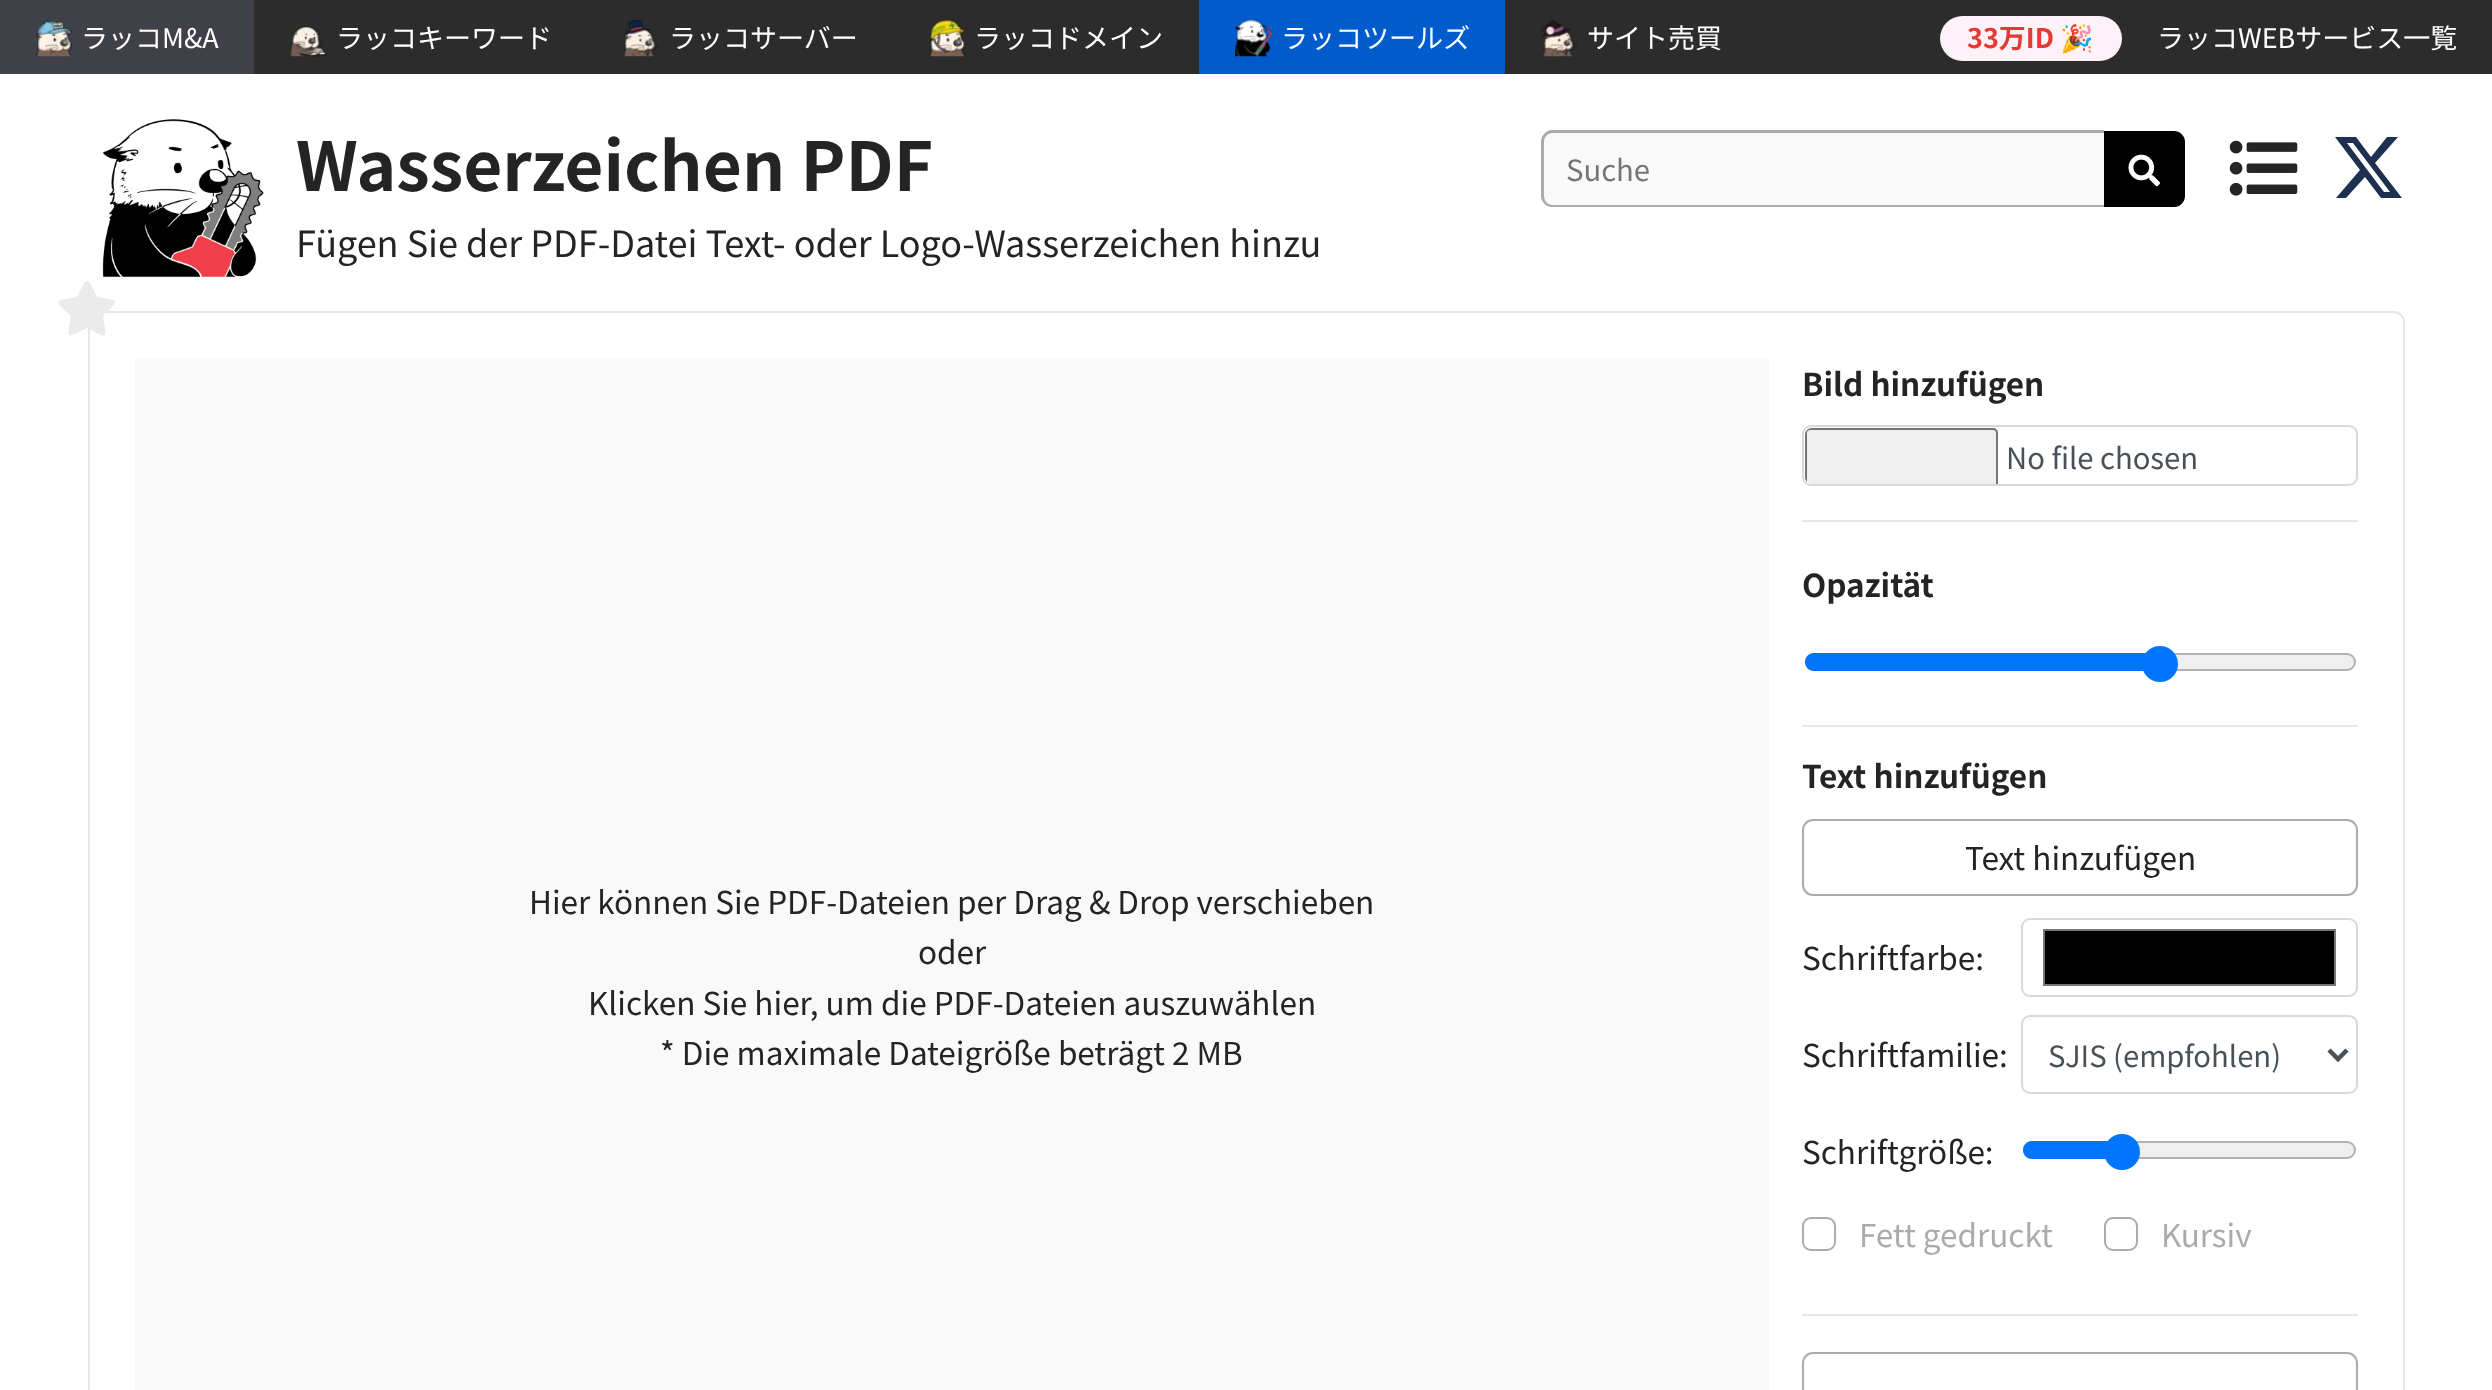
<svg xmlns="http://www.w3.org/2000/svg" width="2492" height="1390">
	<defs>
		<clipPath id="clip1"><rect x="1805" y="428" width="551" height="56" rx="7" /></clipPath>
	</defs>
	<rect width="100%" height="100%" fill="#FFFFFF" />
	<rect x="254" y="0" width="2238" height="74" fill="#2C2C2C" />
	<rect x="0" y="0" width="254" height="74" fill="#404148" />
	<image x="36" y="20" width="36" height="37" href="assets/img1.png" />
	<text x="81" y="48" font-family="Noto Sans JP" font-size="27" fill="#FFFFFF">ラッコM&amp;A</text>
	<image x="290" y="26" width="37" height="31" href="assets/img2.png" />
	<text x="336" y="48" font-family="Noto Sans JP" font-size="27" fill="#FFFFFF">ラッコキーワード</text>
	<image x="623" y="20" width="36" height="37" href="assets/img3.png" />
	<text x="669" y="48" font-family="Noto Sans JP" font-size="27" fill="#FFFFFF">ラッコサーバー</text>
	<image x="929" y="20" width="37" height="37" href="assets/img4.png" />
	<text x="974" y="48" font-family="Noto Sans JP" font-size="27" fill="#FFFFFF">ラッコドメイン</text>
	<rect x="1199" y="0" width="306" height="74" fill="#005CCD" />
	<image x="1235" y="20" width="37" height="37" href="assets/img5.png" />
	<text x="1281" y="48" font-family="Noto Sans JP" font-size="27" fill="#FFFFFF">ラッコツールズ</text>
	<image x="1541" y="20" width="36" height="37" href="assets/img6.png" />
	<text x="1587" y="48" font-family="Noto Sans JP" font-size="27" fill="#FFFFFF">サイト売買</text>
	<rect x="1940" y="16" width="182" height="45" rx="22.5" fill="#FDF2F8" />
	<text x="1967" y="48" font-family="Noto Sans JP" font-size="27" font-weight="700" fill="#E53935">33万ID</text>
	<text x="2060" y="48" font-family="Noto Color Emoji" font-size="27" font-weight="700" fill="#E53935">🎉</text>
	<text x="2157" y="48" font-family="Noto Sans JP" font-size="27" fill="#FFFFFF">ラッコWEBサービス一覧</text>
	<image x="102" y="119" width="162" height="158" href="assets/img7.png" />
	<text x="296" y="191" font-family="Noto Sans JP" font-size="67.5" font-weight="700" fill="#242424">Wasserzeichen PDF</text>
	<text x="296" y="257" font-family="Noto Sans JP" font-size="36" fill="#242424">Fügen Sie der PDF-Datei Text- oder Logo-Wasserzeichen hinzu</text>
	<path d="M1552 131H2104V207H1552C1546 207 1541 202 1541 196V142C1541 136 1546 131 1552 131Z" fill="#F9F9F9" />
	<path d="M1552 130H2104V207H1552C1546 207 1541 202 1541 196V142C1541 136 1546 130 1552 130ZM1552 133H2104V205H1552C1548 205 1544 201 1544 196V142C1544 137 1548 133 1552 133Z" fill="#ABABAB" fill-rule="evenodd" />
	<text x="1566" y="181" font-family="Noto Sans JP" font-size="29.25" fill="#757575">Suche</text>
	<path d="M2105 132H2174C2179.5 132 2184 136.5 2184 142V196C2184 201.5 2179.5 206 2174 206H2105Z" fill="#000000" stroke="#000000" stroke-width="2" />
	<image x="2128" y="154" width="32" height="33" href="assets/img8.png" />
	<image x="2229" y="140" width="69" height="56" href="assets/img9.png" />
	<path d="M2387 137H2398L2375 163L2402 198H2381L2365 177L2346 198H2336L2360 170L2335 137H2356L2371 157ZM2384 192H2390L2353 143H2347Z" fill="#1E3050" />
	<rect x="89" y="312" width="2315" height="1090" rx="10" fill="none" stroke="#E6E6E6" stroke-width="2" />
	<path d="M84 283C84 282 85 281 87 281C88 281 89 282 90 283L97 297C120 301 120 299 103 316C107 340 108 339 87 328C65 339 67 340 71 316C53 299 53 301 77 297Z" fill="#EBEBEB" />
	<rect x="135" y="358" width="1634" height="1032" fill="#F9F9F9" />
	<g font-family="Noto Sans JP" font-size="31.5" fill="#242424">
		<text x="529" y="914">Hier können Sie PDF-Dateien per Drag &amp; Drop verschieben</text>
		<text x="918" y="964">oder</text>
		<text x="588" y="1015">Klicken Sie hier, um die PDF-Dateien auszuwählen</text>
		<text x="660" y="1065">* Die maximale Dateigröße beträgt 2 MB</text>
	</g>
	<text x="1802" y="396" font-family="Noto Sans JP" font-size="31.5" font-weight="700" fill="#242424">Bild hinzufügen</text>
	<rect x="1803" y="426" width="554" height="59" rx="8" fill="none" stroke="#D9D9D9" stroke-width="2" />
	<g clip-path="url(#clip1)">
		<rect x="1805" y="428" width="193" height="60" rx="5" fill="#EFEFEF" />
	</g>
	<path d="M1810 430H1993C1995 430 1996 431 1996 433V484H1998V483V433C1998 430 1996 428 1993 428H1812C1808 428 1805 431 1805 435V477C1805 479 1806 481 1807 482V433C1807 431 1808 430 1810 430Z" fill="#767676" />
	<text x="2006" y="469" font-family="Noto Sans JP" font-size="29.25" fill="#495057">No file chosen</text>
	<rect x="1802" y="520" width="556" height="2" fill="#E6E6E6" />
	<text x="1802" y="597" font-family="Noto Sans JP" font-size="31.5" font-weight="700" fill="#242424">Opazität</text>
	<rect x="1806" y="654" width="549" height="16" rx="8" fill="#EFEFEF" stroke="#B2B2B2" stroke-width="2" />
	<path d="M1814 653H2160V671H1814C1809 671 1805 667 1805 662C1805 657 1809 653 1814 653Z" fill="#0075FF" />
	<circle cx="2160" cy="664" r="18" fill="#0075FF" />
	<rect x="1802" y="725" width="556" height="2" fill="#E6E6E6" />
	<text x="1802" y="788" font-family="Noto Sans JP" font-size="31.5" font-weight="700" fill="#242424">Text hinzufügen</text>
	<rect x="1803" y="820" width="554" height="75" rx="10" fill="none" stroke="#ABABAB" stroke-width="2" />
	<g font-family="Noto Sans JP" font-size="31.5" fill="#242424">
		<text x="1965" y="870">Text hinzufügen</text>
		<text x="1802" y="970">Schriftfarbe:</text>
	</g>
	<rect x="2022" y="919" width="335" height="77" rx="8" fill="none" stroke="#D9D9D9" stroke-width="2" />
	<rect x="2044" y="930" width="291" height="55" fill="#000000" stroke="#777777" stroke-width="2" />
	<text x="1802" y="1067" font-family="Noto Sans JP" font-size="31.5" fill="#242424">Schriftfamilie:</text>
	<rect x="2022" y="1016" width="335" height="77" rx="8" fill="none" stroke="#D9D9D9" stroke-width="2" />
	<path d="M2329 1050L2338 1059L2347 1050" fill="none" stroke="#495057" stroke-width="4.5" />
	<text x="2048" y="1067" font-family="Noto Sans JP" font-size="29.25" fill="#495057">SJIS (empfohlen)</text>
	<text x="1802" y="1164" font-family="Noto Sans JP" font-size="31.5" fill="#242424">Schriftgröße:</text>
	<rect x="2024" y="1142" width="331" height="16" rx="8" fill="#EFEFEF" stroke="#B2B2B2" stroke-width="2" />
	<path d="M2032 1141H2122V1159H2032C2027 1159 2023 1155 2023 1150C2023 1145 2027 1141 2032 1141Z" fill="#0075FF" />
	<circle cx="2122" cy="1152" r="18" fill="#0075FF" />
	<rect x="1803" y="1218" width="32" height="32" rx="8" fill="none" stroke="#ABABAB" stroke-width="2" />
	<text x="1859" y="1247" font-family="Noto Sans JP" font-size="31.5" fill="#ABABAB">Fett gedruckt</text>
	<rect x="2105" y="1218" width="32" height="32" rx="8" fill="none" stroke="#ABABAB" stroke-width="2" />
	<text x="2161" y="1247" font-family="Noto Sans JP" font-size="31.5" fill="#ABABAB">Kursiv</text>
	<rect x="1802" y="1314" width="556" height="2" fill="#E6E6E6" />
	<rect x="1803" y="1353" width="554" height="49" rx="10" fill="none" stroke="#ABABAB" stroke-width="2" />
</svg>
